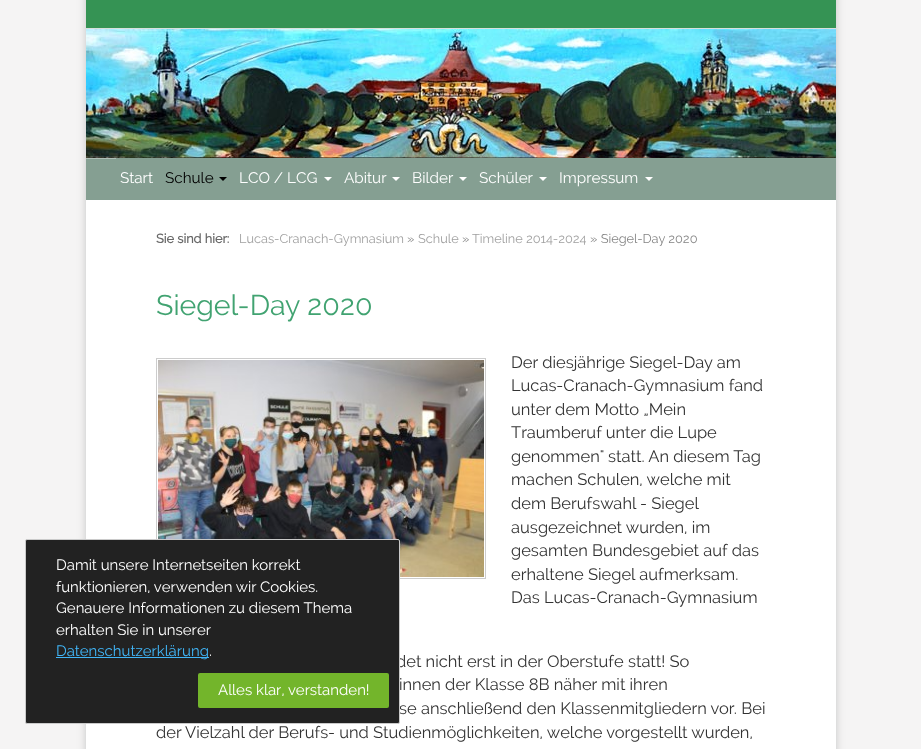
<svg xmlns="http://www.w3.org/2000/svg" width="921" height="749">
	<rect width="100%" height="100%" fill="#F5F4F4" />
	<rect x="86" y="-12" width="750" height="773" fill="#C4C4C4" filter="blur(4px)" />
	<rect x="86" y="0" width="750" height="28" fill="#359354" />
	<image x="86" y="29" width="750" height="129" href="assets/img1.png" />
	<rect x="86" y="28" width="750" height="1" fill="#D8E0DC" />
	<rect x="86" y="158" width="750" height="42" fill="#859F92" />
	<rect x="86" y="158" width="30" height="1" fill="#AEBFB7" />
	<text x="120" y="183" font-family="Raleway" font-size="15.25" fill="#FFFFFF">Start</text>
	<text x="165" y="183" font-family="Raleway" font-size="15.25" fill="#000000">Schule</text>
	<path d="M219 177H227L223 181Z" fill="#000000" />
	<text x="239" y="183" font-family="Raleway" font-size="15.25" fill="#FFFFFF">LCO / LCG</text>
	<path d="M324 177H332L328 181Z" fill="#FFFFFF" />
	<text x="344" y="183" font-family="Raleway" font-size="15.25" fill="#FFFFFF">Abitur</text>
	<path d="M392 177H400L396 181Z" fill="#FFFFFF" />
	<text x="412" y="183" font-family="Raleway" font-size="15.25" fill="#FFFFFF">Bilder</text>
	<path d="M459 177H467L463 181Z" fill="#FFFFFF" />
	<text x="479" y="183" font-family="Raleway" font-size="15.25" fill="#FFFFFF">Schüler</text>
	<path d="M539 177H547L543 181Z" fill="#FFFFFF" />
	<text x="559" y="183" font-family="Raleway" font-size="15.25" fill="#FFFFFF">Impressum</text>
	<path d="M645 177H653L649 181Z" fill="#FFFFFF" />
	<rect x="86" y="200" width="750" height="549" fill="#FFFFFF" />
	<text x="156" y="243" font-family="Raleway" font-size="12.75" font-weight="700" fill="#696969">Sie sind hier:</text>
	<text x="239" y="243" font-family="Raleway" font-size="12.75" fill="#A0A0A0">Lucas-Cranach-Gymnasium</text>
	<text x="407" y="243" font-family="Raleway" font-size="12.75" fill="#858585">»</text>
	<text x="418" y="243" font-family="Raleway" font-size="12.75" fill="#A0A0A0">Schule</text>
	<text x="462" y="243" font-family="Raleway" font-size="12.75" fill="#858585">»</text>
	<text x="472" y="243" font-family="Raleway" font-size="12.75" fill="#A0A0A0">Timeline 2014-2024</text>
	<text x="590" y="243" font-family="Raleway" font-size="12.75" fill="#858585">» Siegel-Day 2020</text>
	<text x="156" y="315" font-family="Raleway" font-size="28.5" fill="#41A371">Siegel-Day 2020</text>
	<rect x="156.5" y="358.5" width="329" height="220" fill="none" stroke="#CCCCCC" />
	<image x="158" y="360" width="326" height="217" href="assets/img2.png" />
	<g font-family="Raleway" font-size="16.5" fill="#333333">
		<text x="511" y="368">Der diesjährige Siegel-Day am</text>
		<text x="511" y="391">Lucas-Cranach-Gymnasium fand</text>
		<text x="511" y="415">unter dem Motto „Mein</text>
		<text x="511" y="438">Traumberuf unter die Lupe</text>
		<text x="511" y="462">genommen" statt. An diesem Tag</text>
		<text x="511" y="485">machen Schulen, welche mit</text>
		<text x="511" y="509">dem Berufswahl - Siegel</text>
		<text x="511" y="533">ausgezeichnet wurden, im</text>
		<text x="511" y="556">gesamten Bundesgebiet auf das</text>
		<text x="511" y="580">erhaltene Siegel aufmerksam.</text>
		<text x="511" y="603">Das Lucas-Cranach-Gymnasium</text>
		<text x="396" y="667">det nicht erst in der Oberstufe statt! So</text>
		<text x="399" y="690">innen der Klasse 8B näher mit ihren</text>
		<text x="399" y="714">se anschließend den Klassenmitgliedern vor. Bei</text>
		<text x="156" y="738">der Vielzahl der Berufs- und Studienmöglichkeiten, welche vorgestellt wurden,</text>
	</g>
	<rect x="25.5" y="539.5" width="374" height="184" rx="1.5" fill="#222222" stroke="#CACACA" />
	<g font-family="Raleway" font-size="15" fill="#FFFFFF">
		<text x="56" y="570">Damit unsere Internetseiten korrekt</text>
		<text x="56" y="592">funktionieren, verwenden wir Cookies.</text>
		<text x="56" y="613">Genauere Informationen zu diesem Thema</text>
		<text x="56" y="635">erhalten Sie in unserer</text>
	</g>
	<rect x="56" y="657" width="153" height="1" fill="#41B6F8" />
	<text x="56" y="656" font-family="Raleway" font-size="15" fill="#41B6F8">Datenschutzerklärung</text>
	<text x="209" y="656" font-family="Raleway" font-size="15" fill="#FFFFFF">.</text>
	<rect x="198" y="673" width="191" height="35" rx="2" fill="#73B52B" />
	<text x="218" y="695" font-family="Raleway" font-size="15" fill="#FFFFFF">Alles klar, verstanden!</text>
</svg>
